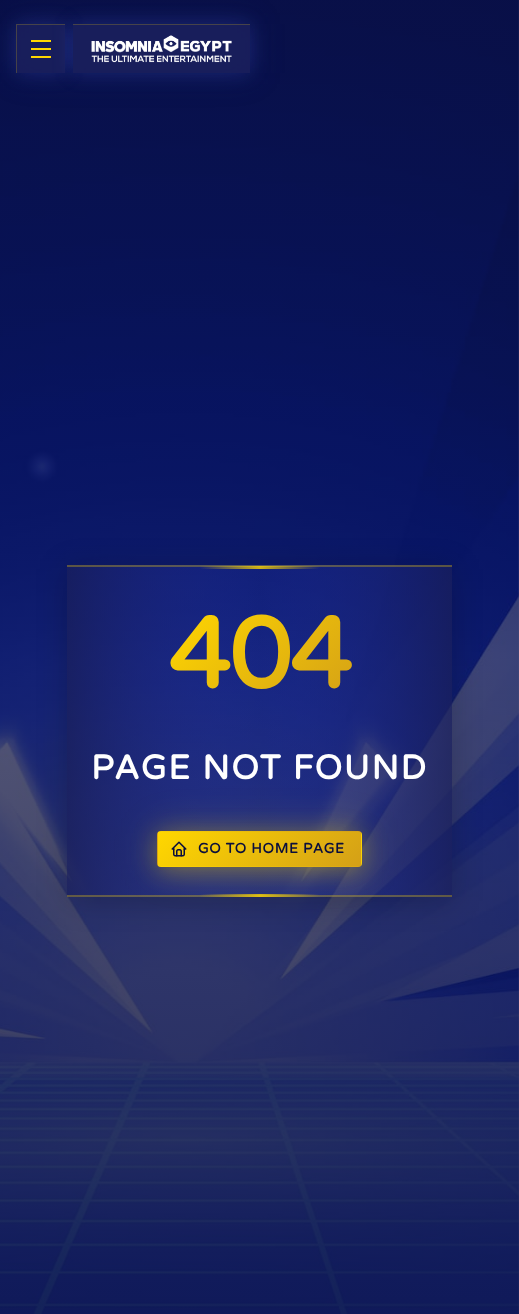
<svg xmlns="http://www.w3.org/2000/svg" width="519" height="1314">
	<defs>
		<linearGradient id="g1" gradientUnits="userSpaceOnUse" x1="259" y1="0" x2="260" y2="1314"><stop offset="0" stop-color="#0A0E3D" stop-opacity="0.85" /><stop offset="0.5" stop-color="#0A0E3D" stop-opacity="0.7" /><stop offset="1" stop-color="#0A0E3D" stop-opacity="0.85" /></linearGradient>
		<clipPath id="clip1"><path d="M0 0H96V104H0ZM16 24H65V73H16Z" clip-rule="evenodd" /></clipPath>
		<clipPath id="clip2"><path d="M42 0H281V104H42ZM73 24H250V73H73Z" clip-rule="evenodd" /></clipPath>
		<clipPath id="clip3"><path d="M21 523H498V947H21ZM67 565H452V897H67Z" clip-rule="evenodd" /></clipPath>
		<linearGradient id="g2" gradientUnits="userSpaceOnUse" x1="189" y1="586" x2="330" y2="728"><stop offset="0" stop-color="#FFD700" /><stop offset="1" stop-color="#D4A017" /></linearGradient>
		<linearGradient id="g3" gradientUnits="userSpaceOnUse" x1="67" y1="731" x2="452" y2="731"><stop offset="0" stop-color="#1A1F5C" stop-opacity="0.7" /><stop offset="0.5" stop-color="#2436B8" stop-opacity="0.2" /><stop offset="1" stop-color="#1A1F5C" stop-opacity="0.7" /></linearGradient>
		<linearGradient id="g4" gradientUnits="userSpaceOnUse" x1="200" y1="567" x2="320" y2="567"><stop offset="0" stop-color="#FFD700" stop-opacity="0" /><stop offset="0.5" stop-color="#FFD700" stop-opacity="0.8" /><stop offset="1" stop-color="#FFD700" stop-opacity="0" /></linearGradient>
		<clipPath id="clip4"><rect x="157" y="831" width="205" height="36" rx="4" /></clipPath>
		<linearGradient id="g5" gradientUnits="userSpaceOnUse" x1="200" y1="756" x2="319" y2="874"><stop offset="0" stop-color="#FFD700" /><stop offset="1" stop-color="#D4A017" /></linearGradient>
		<linearGradient id="g6" gradientUnits="userSpaceOnUse" x1="-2.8" y1="790" x2="116" y2="908"><stop offset="0" stop-color="#FFD700" /><stop offset="1" stop-color="#D4A017" /></linearGradient>
		<linearGradient id="g7" gradientUnits="userSpaceOnUse" x1="200" y1="790" x2="319" y2="908"><stop offset="0" stop-color="#FFD700" /><stop offset="1" stop-color="#D4A017" /></linearGradient>
		<linearGradient id="g8" gradientUnits="userSpaceOnUse" x1="403" y1="790" x2="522" y2="908"><stop offset="0" stop-color="#FFD700" /><stop offset="1" stop-color="#D4A017" /></linearGradient>
		<linearGradient id="g9" gradientUnits="userSpaceOnUse" x1="200" y1="824" x2="319" y2="942"><stop offset="0" stop-color="#FFD700" /><stop offset="1" stop-color="#D4A017" /></linearGradient>
		<linearGradient id="g10" gradientUnits="userSpaceOnUse" x1="200" y1="895" x2="320" y2="895"><stop offset="0" stop-color="#FFD700" stop-opacity="0" /><stop offset="0.5" stop-color="#FFD700" stop-opacity="0.8" /><stop offset="1" stop-color="#FFD700" stop-opacity="0" /></linearGradient>
	</defs>
	<rect width="100%" height="100%" fill="#FFFFFF" />
	<image x="0" y="0" width="519" height="1314" href="assets/img1.png" />
	<rect x="0" y="0" width="519" height="1314" fill="url(#g1)" />
	<rect x="16" y="24" width="234" height="49" fill="#242E7D" fill-opacity="0.25" filter="blur(16px)" />
	<g clip-path="url(#clip1)">
		<rect x="16" y="24" width="49" height="49" fill="#4D6AFF" fill-opacity="0.2" filter="blur(10px)" />
	</g>
	<rect x="16" y="24" width="49" height="49" fill="#1A1F5C" fill-opacity="0.9" />
	<path d="M16 24H65V25H17Z" fill="#474349" />
	<path d="M16 73V24L17 25V73Z" fill="#FFD700" fill-opacity="0.2" />
	<rect x="31" y="40" width="20" height="2" fill="#FFD700" />
	<rect x="31" y="48" width="20" height="2" fill="#FFD700" />
	<rect x="31" y="56" width="20" height="2" fill="#FFD700" />
	<g clip-path="url(#clip2)">
		<rect x="73" y="24" width="177" height="49" fill="#4D6AFF" fill-opacity="0.2" filter="blur(10px)" />
	</g>
	<rect x="73" y="25" width="177" height="48" fill="#1A1F5C" fill-opacity="0.9" />
	<rect x="73" y="24" width="177" height="1" fill="#474349" />
	<image x="91" y="35" width="141" height="28" href="assets/img2.png" />
	<g clip-path="url(#clip3)">
		<rect x="67" y="569" width="385" height="332" fill="#000000" fill-opacity="0.2" filter="blur(15px)" />
	</g>
	<rect x="67" y="565" width="385" height="332" fill="url(#g3)" />
	<rect x="67" y="565" width="385" height="2" fill="#FFD700" fill-opacity="0.3" />
	<rect x="67" y="895" width="385" height="2" fill="#FFD700" fill-opacity="0.3" />
	<rect x="200" y="566" width="120" height="3" fill="url(#g4)" />
	<text x="168" y="688" font-family="Varela Round" font-size="100" font-weight="700" letter-spacing="-2" fill="url(#g2)">404</text>
	<text x="91" y="779" font-family="Varela Round" font-size="34" font-weight="700" letter-spacing="1.75" fill="#FFFFFF">PAGE NOT FOUND</text>
	<rect x="157" y="831" width="205" height="36" rx="4" fill="#FFD700" fill-opacity="0.2" filter="blur(20px)" />
	<rect x="157" y="835" width="205" height="36" rx="4" fill="#FFD700" fill-opacity="0.3" filter="blur(12px)" />
	<g clip-path="url(#clip4)">
		<rect x="158" y="831" width="203" height="1" fill="url(#g5)" />
		<rect x="157" y="832" width="1" height="34" fill="url(#g6)" />
		<rect x="158" y="832" width="203" height="34" fill="url(#g7)" />
		<rect x="361" y="832" width="1" height="34" fill="url(#g8)" />
		<rect x="158" y="866" width="203" height="1" fill="url(#g9)" />
	</g>
	<image x="171" y="841" width="16" height="16" href="assets/img3.png" />
	<text x="198" y="853" font-family="Varela Round" font-size="14" font-weight="700" letter-spacing="0.75" fill="#0A0E3D">GO TO HOME PAGE</text>
	<rect x="200" y="894" width="120" height="3" fill="url(#g10)" />
</svg>
